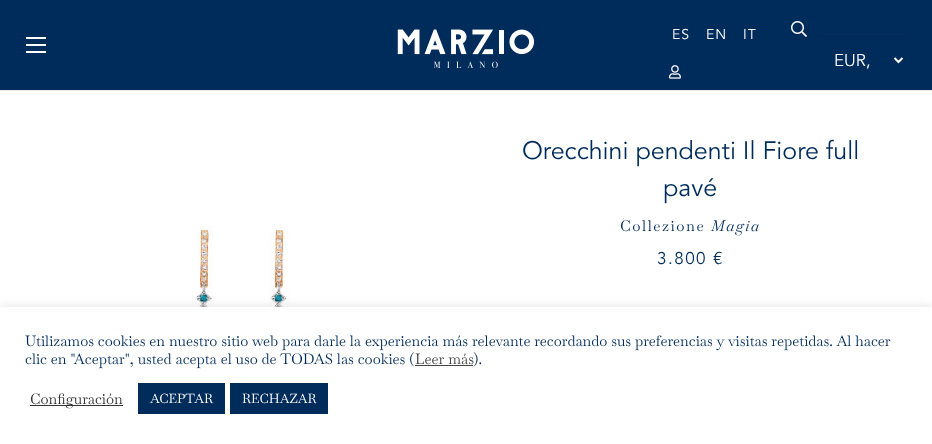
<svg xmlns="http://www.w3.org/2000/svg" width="932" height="444">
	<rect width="100%" height="100%" fill="#FFFFFF" />
	<rect x="0" y="90" width="932" height="1" fill="#EBEBEB" />
	<rect x="0" y="0" width="932" height="90" fill="#002C5C" />
	<rect x="26" y="44" width="20" height="2" fill="#FFFFFF" />
	<rect x="26" y="37" width="20" height="2" fill="#FFFFFF" />
	<rect x="26" y="51" width="20" height="2" fill="#FFFFFF" />
	<image x="397" y="29" width="138" height="39" href="assets/img1.png" />
	<g font-family="Avenir" font-size="14" letter-spacing="1" fill="#FFFFFF">
		<text x="672" y="39">ES</text>
		<text x="706" y="39">EN</text>
		<text x="743" y="39">IT</text>
	</g>
	<image x="669" y="65" width="12" height="14" href="assets/img2.png" />
	<image x="791" y="21" width="16" height="16" href="assets/img3.png" />
	<rect x="817" y="36" width="90" height="1" fill="#002855" />
	<path d="M894.5 58L898.5 62L902.5 58" fill="none" stroke="#FFFFFF" stroke-width="2" />
	<text x="834" y="66" font-family="Avenir" font-size="17" fill="#FFFFFF">EUR,</text>
	<image x="177" y="225" width="129" height="82" href="assets/img4.png" />
	<g font-family="Avenir" font-size="25" fill="#002C5C">
		<text x="522" y="159">Orecchini pendenti Il Fiore full</text>
		<text x="663" y="196">pavé</text>
	</g>
	<text x="620" y="231" font-family="Baskervville" font-size="15" letter-spacing="1.5" fill="#002C5C">Collezione</text>
	<text x="711" y="231" font-family="Baskervville" font-size="15" font-style="italic" letter-spacing="1.5" fill="#002C5C">Magia</text>
	<g font-family="Avenir" font-size="17" letter-spacing="1.5" fill="#002C5C">
		<text x="657" y="264">3.800</text>
		<text x="713" y="264">€</text>
	</g>
	<rect x="0" y="306" width="932" height="137" fill="#ACABAB" fill-opacity="0.3" filter="blur(5px)" />
	<rect x="0" y="307" width="932" height="137" fill="#FFFFFF" />
	<g font-family="Baskervville" font-size="14.67" fill="#002C5C">
		<text x="25" y="346">Utilizamos cookies en nuestro sitio web para darle la experiencia más relevante recordando sus preferencias y visitas repetidas. Al hacer</text>
		<text x="25" y="364">clic en "Aceptar", usted acepta el uso de TODAS las cookies (</text>
	</g>
	<text x="415" y="364" font-family="Baskervville" font-size="14.67" fill="#444444">Leer más</text>
	<rect x="415" y="365" width="58" height="1" fill="#444444" />
	<text x="473" y="364" font-family="Baskervville" font-size="14.67" fill="#002C5C">).</text>
	<rect x="30" y="405" width="93" height="1" fill="#333333" />
	<text x="30" y="404" font-family="Baskervville" font-size="14.67" fill="#333333">Configuración</text>
	<rect x="138" y="383" width="87" height="31" fill="#002C5C" />
	<text x="150" y="403" font-family="Baskervville" font-size="13" fill="#FFFFFF">ACEPTAR</text>
	<rect x="230" y="383" width="98" height="31" fill="#002C5C" />
	<text x="242" y="403" font-family="Baskervville" font-size="13" fill="#FFFFFF">RECHAZAR</text>
</svg>
